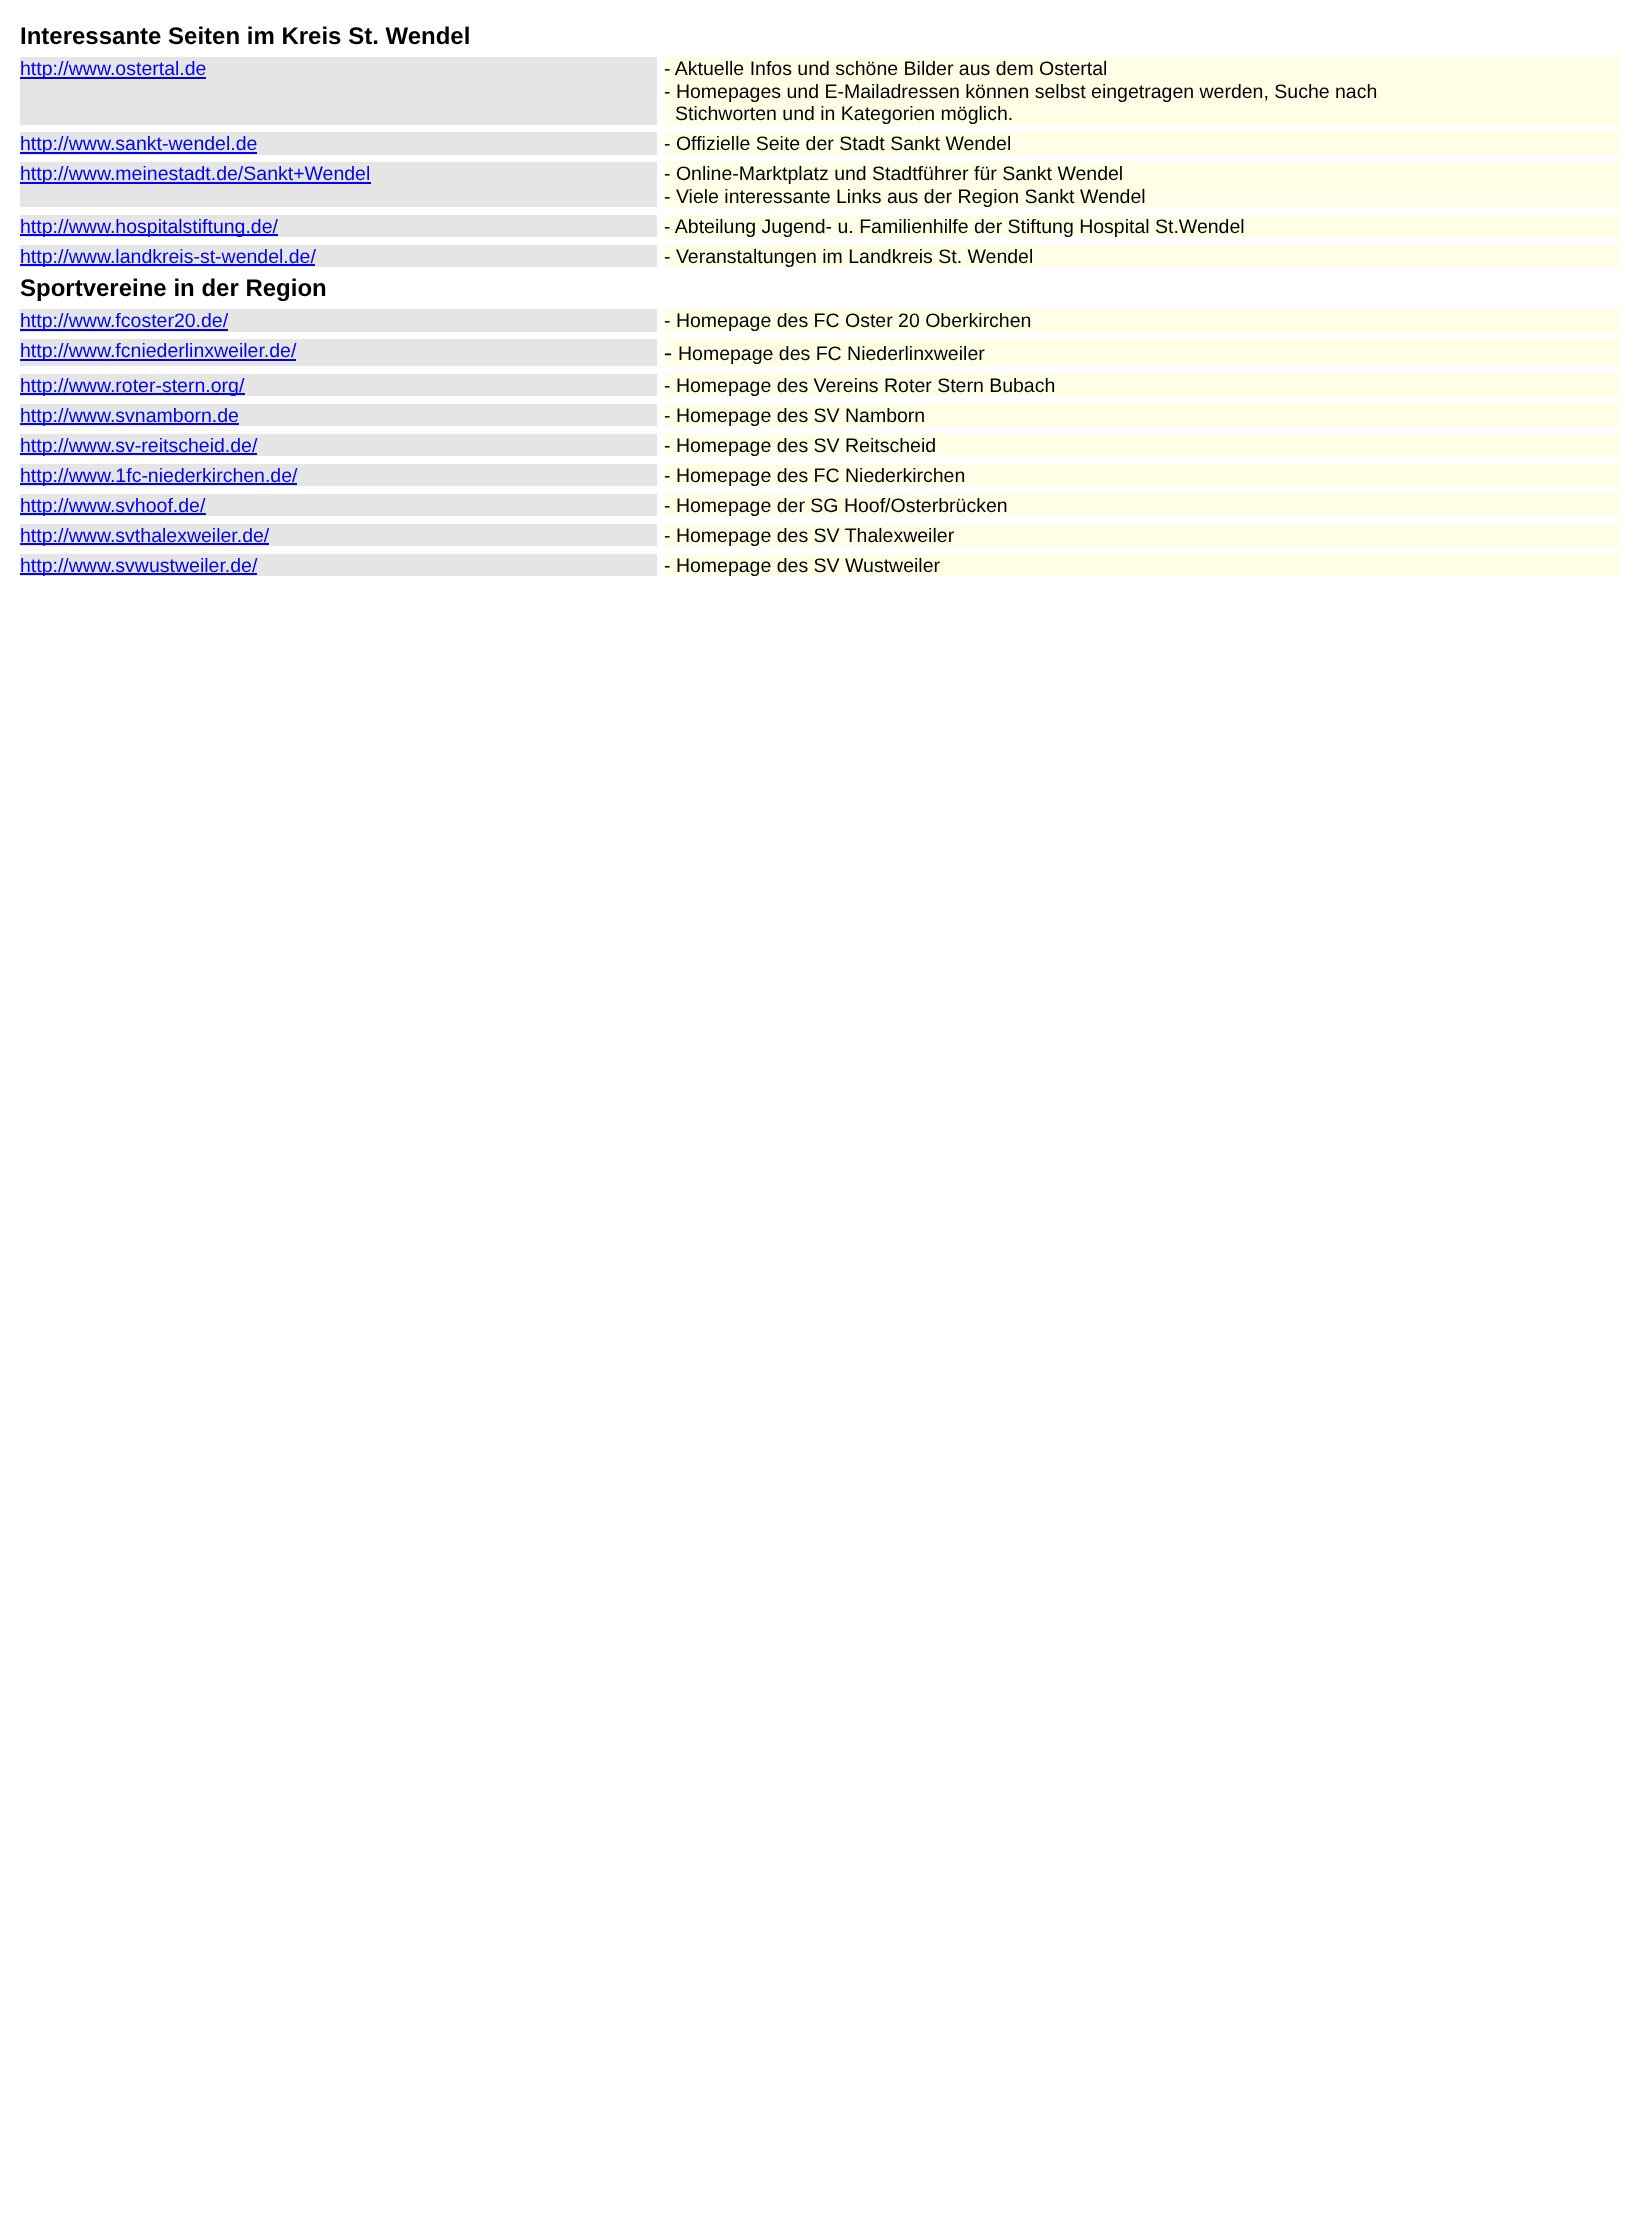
<svg xmlns="http://www.w3.org/2000/svg" width="1639" height="2233">
	<rect width="100%" height="100%" fill="#FFFFFF" />
	<text x="20" y="44" font-family="Liberation Sans" font-size="24" font-weight="700" fill="#000000">Interessante Seiten im Kreis St. Wendel</text>
	<rect x="20" y="57" width="637" height="68" fill="#E5E5E5" />
	<rect x="20" y="77" width="186" height="2" fill="#0000EE" />
	<text x="20" y="75" font-family="Liberation Sans" font-size="19.5" fill="#0000EE">http://www.ostertal.de</text>
	<rect x="665" y="57" width="955" height="68" fill="#FFFFE6" />
	<g font-family="Liberation Sans" font-size="19.5" fill="#000000">
		<text x="664" y="75">- Aktuelle Infos und schöne Bilder aus dem Ostertal</text>
		<text x="664" y="98">- Homepages und E-Mailadressen können selbst eingetragen werden, Suche nach</text>
		<text x="675" y="120">Stichworten und in Kategorien möglich.</text>
	</g>
	<rect x="20" y="132" width="637" height="23" fill="#E5E5E5" />
	<rect x="20" y="152" width="237" height="2" fill="#0000EE" />
	<text x="20" y="150" font-family="Liberation Sans" font-size="19.5" fill="#0000EE">http://www.sankt-wendel.de</text>
	<rect x="665" y="132" width="955" height="23" fill="#FFFFE6" />
	<text x="664" y="150" font-family="Liberation Sans" font-size="19.5" fill="#000000">- Offizielle Seite der Stadt Sankt Wendel</text>
	<rect x="20" y="162" width="637" height="45" fill="#E5E5E5" />
	<rect x="20" y="182" width="351" height="2" fill="#0000EE" />
	<text x="20" y="180" font-family="Liberation Sans" font-size="19.5" fill="#0000EE">http://www.meinestadt.de/Sankt+Wendel</text>
	<rect x="665" y="162" width="955" height="45" fill="#FFFFE6" />
	<g font-family="Liberation Sans" font-size="19.5" fill="#000000">
		<text x="664" y="180">- Online-Marktplatz und Stadtführer für Sankt Wendel</text>
		<text x="664" y="203">- Viele interessante Links aus der Region Sankt Wendel</text>
	</g>
	<rect x="20" y="215" width="637" height="22" fill="#E5E5E5" />
	<rect x="20" y="234" width="258" height="2" fill="#0000EE" />
	<text x="20" y="233" font-family="Liberation Sans" font-size="19.5" fill="#0000EE">http://www.hospitalstiftung.de/</text>
	<rect x="665" y="215" width="955" height="22" fill="#FFFFE6" />
	<text x="664" y="233" font-family="Liberation Sans" font-size="19.5" fill="#000000">- Abteilung Jugend- u. Familienhilfe der Stiftung Hospital St.Wendel</text>
	<rect x="20" y="245" width="637" height="22" fill="#E5E5E5" />
	<rect x="20" y="264" width="295" height="2" fill="#0000EE" />
	<text x="20" y="263" font-family="Liberation Sans" font-size="19.5" fill="#0000EE">http://www.landkreis-st-wendel.de/</text>
	<rect x="665" y="245" width="955" height="22" fill="#FFFFE6" />
	<text x="664" y="263" font-family="Liberation Sans" font-size="19.5" fill="#000000">- Veranstaltungen im Landkreis St. Wendel</text>
	<text x="20" y="296" font-family="Liberation Sans" font-size="24" font-weight="700" fill="#000000">Sportvereine in der Region</text>
	<rect x="20" y="309" width="637" height="23" fill="#E5E5E5" />
	<rect x="20" y="329" width="208" height="2" fill="#0000EE" />
	<text x="20" y="327" font-family="Liberation Sans" font-size="19.5" fill="#0000EE">http://www.fcoster20.de/</text>
	<rect x="665" y="309" width="955" height="23" fill="#FFFFE6" />
	<text x="664" y="327" font-family="Liberation Sans" font-size="19.5" fill="#000000">- Homepage des FC Oster 20 Oberkirchen</text>
	<rect x="20" y="339" width="637" height="27" fill="#E5E5E5" />
	<rect x="20" y="359" width="276" height="2" fill="#0000EE" />
	<text x="20" y="357" font-family="Liberation Sans" font-size="19.5" fill="#0000EE">http://www.fcniederlinxweiler.de/</text>
	<rect x="665" y="339" width="955" height="27" fill="#FFFFE6" />
	<text x="664" y="360" font-family="Liberation Serif" font-size="24" fill="#000000">-</text>
	<text x="678" y="360" font-family="Liberation Sans" font-size="19.5" fill="#000000">Homepage des FC Niederlinxweiler</text>
	<rect x="20" y="374" width="637" height="22" fill="#E5E5E5" />
	<rect x="20" y="393" width="225" height="2" fill="#0000EE" />
	<text x="20" y="392" font-family="Liberation Sans" font-size="19.5" fill="#0000EE">http://www.roter-stern.org/</text>
	<rect x="665" y="374" width="955" height="22" fill="#FFFFE6" />
	<text x="664" y="392" font-family="Liberation Sans" font-size="19.5" fill="#000000">- Homepage des Vereins Roter Stern Bubach</text>
	<rect x="20" y="404" width="637" height="22" fill="#E5E5E5" />
	<rect x="20" y="423" width="219" height="2" fill="#0000EE" />
	<text x="20" y="422" font-family="Liberation Sans" font-size="19.5" fill="#0000EE">http://www.svnamborn.de</text>
	<rect x="665" y="404" width="955" height="22" fill="#FFFFE6" />
	<text x="664" y="422" font-family="Liberation Sans" font-size="19.5" fill="#000000">- Homepage des SV Namborn</text>
	<rect x="20" y="434" width="637" height="22" fill="#E5E5E5" />
	<rect x="20" y="453" width="237" height="2" fill="#0000EE" />
	<text x="20" y="452" font-family="Liberation Sans" font-size="19.5" fill="#0000EE">http://www.sv-reitscheid.de/</text>
	<rect x="665" y="434" width="955" height="22" fill="#FFFFE6" />
	<text x="664" y="452" font-family="Liberation Sans" font-size="19.5" fill="#000000">- Homepage des SV Reitscheid</text>
	<rect x="20" y="464" width="637" height="22" fill="#E5E5E5" />
	<rect x="20" y="483" width="277" height="2" fill="#0000EE" />
	<text x="20" y="482" font-family="Liberation Sans" font-size="19.5" fill="#0000EE">http://www.1fc-niederkirchen.de/</text>
	<rect x="665" y="464" width="955" height="22" fill="#FFFFE6" />
	<text x="664" y="482" font-family="Liberation Sans" font-size="19.5" fill="#000000">- Homepage des FC Niederkirchen</text>
	<rect x="20" y="494" width="637" height="22" fill="#E5E5E5" />
	<rect x="20" y="513" width="186" height="2" fill="#0000EE" />
	<text x="20" y="512" font-family="Liberation Sans" font-size="19.5" fill="#0000EE">http://www.svhoof.de/</text>
	<rect x="665" y="494" width="955" height="22" fill="#FFFFE6" />
	<text x="664" y="512" font-family="Liberation Sans" font-size="19.5" fill="#000000">- Homepage der SG Hoof/Osterbrücken</text>
	<rect x="20" y="524" width="637" height="22" fill="#E5E5E5" />
	<rect x="20" y="543" width="249" height="2" fill="#0000EE" />
	<text x="20" y="542" font-family="Liberation Sans" font-size="19.5" fill="#0000EE">http://www.svthalexweiler.de/</text>
	<rect x="665" y="524" width="955" height="22" fill="#FFFFE6" />
	<text x="664" y="542" font-family="Liberation Sans" font-size="19.5" fill="#000000">- Homepage des SV Thalexweiler</text>
	<rect x="20" y="554" width="637" height="22" fill="#E5E5E5" />
	<rect x="20" y="573" width="237" height="2" fill="#0000EE" />
	<text x="20" y="572" font-family="Liberation Sans" font-size="19.5" fill="#0000EE">http://www.svwustweiler.de/</text>
	<rect x="665" y="554" width="955" height="22" fill="#FFFFE6" />
	<text x="664" y="572" font-family="Liberation Sans" font-size="19.5" fill="#000000">- Homepage des SV Wustweiler</text>
</svg>
